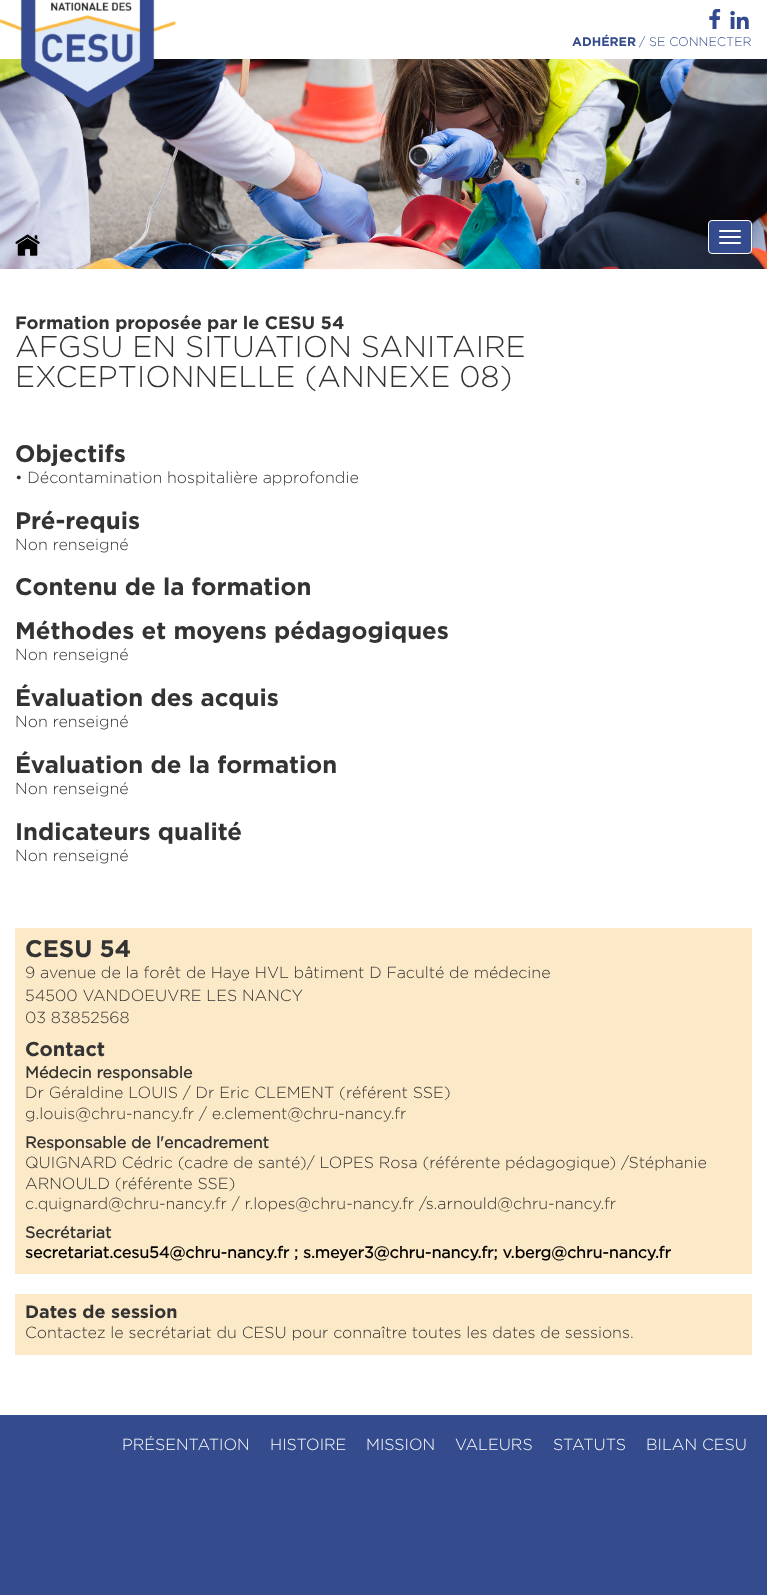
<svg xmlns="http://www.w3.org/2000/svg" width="767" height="1595">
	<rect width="100%" height="100%" fill="#FFFFFF" />
	<image x="0" y="59" width="767" height="210" href="assets/img4.png" />
	<image x="0" y="0" width="176" height="107" href="assets/img1.png" />
	<image x="709" y="9" width="12" height="20" href="assets/img2.png" />
	<image x="730" y="11" width="19" height="18" href="assets/img3.png" />
	<text x="572" y="46" font-family="Gotham" font-size="12.5" font-weight="700" fill="#344B8D">ADHÉRER</text>
	<text x="639" y="46" font-family="Gotham" font-size="12.5" font-weight="300" fill="#344B8D">/ SE CONNECTER</text>
	<image x="15" y="234" width="25" height="22" href="assets/img5.png" />
	<rect x="708.5" y="220.5" width="43" height="33" rx="3.5" fill="#344B8D" stroke="#FFFFFF" />
	<rect x="719" y="230" width="22" height="2" rx="1" fill="#FFFFFF" />
	<rect x="719" y="236" width="22" height="2" rx="1" fill="#FFFFFF" />
	<rect x="719" y="242" width="22" height="2" rx="1" fill="#FFFFFF" />
	<text x="15" y="329" font-family="Gotham" font-size="18" font-weight="700" fill="#333333">Formation proposée par le CESU 54</text>
	<g font-family="Gotham" font-size="30" font-weight="300" fill="#333333">
		<text x="15" y="357">AFGSU EN SITUATION SANITAIRE</text>
		<text x="15" y="387">EXCEPTIONNELLE (ANNEXE 08)</text>
	</g>
	<text x="15" y="462" font-family="Gotham" font-size="24" font-weight="700" fill="#333333">Objectifs</text>
	<text x="15" y="483" font-family="Gotham" font-size="16" font-weight="300" fill="#333333">• Décontamination hospitalière approfondie</text>
	<text x="15" y="529" font-family="Gotham" font-size="24" font-weight="700" fill="#333333">Pré-requis</text>
	<text x="15" y="550" font-family="Gotham" font-size="16" font-weight="300" fill="#333333">Non renseigné</text>
	<g font-family="Gotham" font-size="24" font-weight="700" fill="#333333">
		<text x="15" y="595">Contenu de la formation</text>
		<text x="15" y="639">Méthodes et moyens pédagogiques</text>
	</g>
	<text x="15" y="660" font-family="Gotham" font-size="16" font-weight="300" fill="#333333">Non renseigné</text>
	<text x="15" y="706" font-family="Gotham" font-size="24" font-weight="700" fill="#333333">Évaluation des acquis</text>
	<text x="15" y="727" font-family="Gotham" font-size="16" font-weight="300" fill="#333333">Non renseigné</text>
	<text x="15" y="773" font-family="Gotham" font-size="24" font-weight="700" fill="#333333">Évaluation de la formation</text>
	<text x="15" y="794" font-family="Gotham" font-size="16" font-weight="300" fill="#333333">Non renseigné</text>
	<text x="15" y="840" font-family="Gotham" font-size="24" font-weight="700" fill="#333333">Indicateurs qualité</text>
	<text x="15" y="861" font-family="Gotham" font-size="16" font-weight="300" fill="#333333">Non renseigné</text>
	<rect x="15" y="928" width="737" height="346" fill="#FCE9C8" />
	<text x="25" y="957" font-family="Gotham" font-size="24" font-weight="700" fill="#333333">CESU 54</text>
	<g font-family="Gotham" font-size="16" font-weight="300" fill="#333333">
		<text x="25" y="978">9 avenue de la forêt de Haye HVL bâtiment D Faculté de médecine</text>
		<text x="25" y="1001">54500 VANDOEUVRE LES NANCY</text>
		<text x="25" y="1023">03 83852568</text>
	</g>
	<text x="25" y="1056" font-family="Gotham" font-size="20" font-weight="700" fill="#333333">Contact</text>
	<text x="25" y="1078" font-family="'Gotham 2'" font-size="16" font-weight="700" fill="#333333">Médecin responsable</text>
	<g font-family="Gotham" font-size="16" font-weight="300" fill="#333333">
		<text x="25" y="1098">Dr Géraldine LOUIS / Dr Eric CLEMENT (référent SSE)</text>
		<text x="25" y="1119">g.louis@chru-nancy.fr / e.clement@chru-nancy.fr</text>
	</g>
	<text x="25" y="1148" font-family="'Gotham 2'" font-size="16" font-weight="700" fill="#333333">Responsable de l'encadrement</text>
	<g font-family="Gotham" font-size="16" font-weight="300" fill="#333333">
		<text x="25" y="1168">QUIGNARD Cédric (cadre de santé)/ LOPES Rosa (référente pédagogique) /Stéphanie</text>
		<text x="25" y="1189">ARNOULD (référente SSE)</text>
		<text x="25" y="1209">c.quignard@chru-nancy.fr / r.lopes@chru-nancy.fr /s.arnould@chru-nancy.fr</text>
	</g>
	<text x="25" y="1238" font-family="'Gotham 2'" font-size="16" font-weight="700" fill="#333333">Secrétariat</text>
	<text x="25" y="1258" font-family="'Gotham 2'" font-size="16" font-weight="700" fill="#000000">secretariat.cesu54@chru-nancy.fr ; s.meyer3@chru-nancy.fr; v.berg@chru-nancy.fr</text>
	<rect x="15" y="1294" width="737" height="61" fill="#FCE9C8" />
	<text x="25" y="1318" font-family="Gotham" font-size="18" font-weight="700" fill="#333333">Dates de session</text>
	<text x="25" y="1338" font-family="Gotham" font-size="16" font-weight="300" fill="#333333">Contactez le secrétariat du CESU pour connaître toutes les dates de sessions.</text>
	<rect x="0" y="1415" width="767" height="180" fill="#344B8D" />
	<g font-family="Gotham" font-size="16" font-weight="300" fill="#FFFFFF">
		<text x="122" y="1450">PRÉSENTATION</text>
		<text x="270" y="1450">HISTOIRE</text>
		<text x="366" y="1450">MISSION</text>
		<text x="455" y="1450">VALEURS</text>
		<text x="553" y="1450">STATUTS</text>
		<text x="646" y="1450">BILAN CESU</text>
	</g>
</svg>
